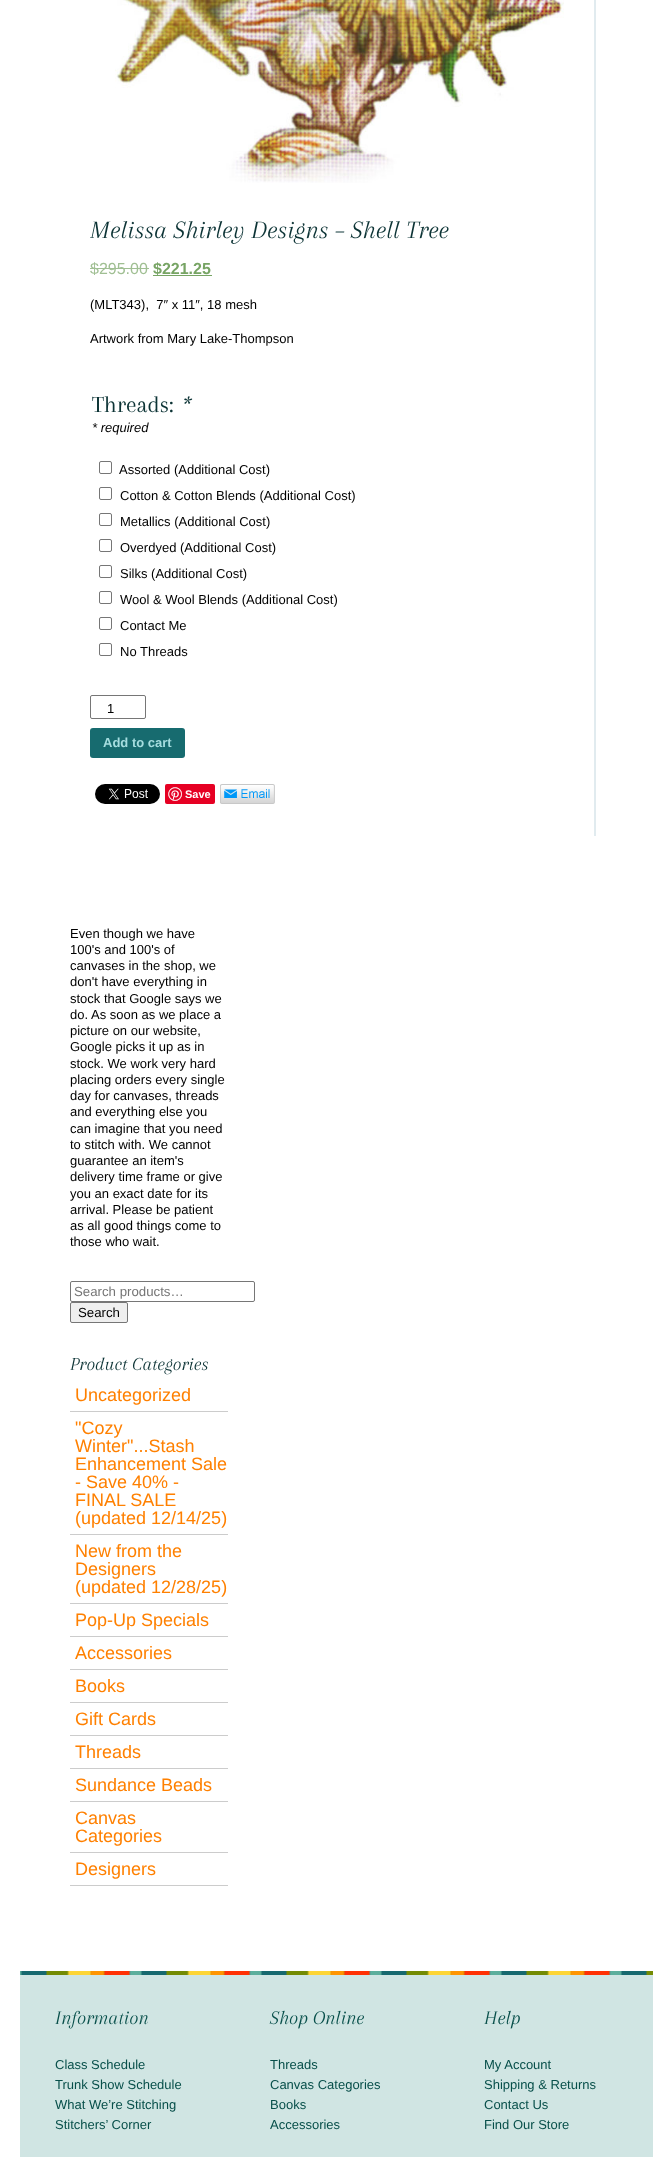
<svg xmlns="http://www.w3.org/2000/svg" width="653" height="2157">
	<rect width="100%" height="100%" fill="#FFFFFF" />
	<rect x="594" y="0" width="2" height="836" fill="#E1EBEF" />
	<image x="115" y="0" width="449" height="183" href="assets/img1.png" />
	<text x="90" y="238" font-family="Arapey" font-size="26" font-style="italic" fill="#0C3335">Melissa Shirley Designs – Shell Tree</text>
	<text x="90" y="274" font-family="Liberation Sans" font-size="16" fill="#A0BF93">$295.00</text>
	<rect x="90" y="268" width="59" height="1" fill="#A0BF93" />
	<rect x="153" y="275" width="9" height="1" fill="#77A464" />
	<text x="153" y="274" font-family="Liberation Sans" font-size="16" font-weight="700" fill="#77A464">$221.25</text>
	<rect x="162" y="275" width="50" height="1" fill="#77A464" />
	<g font-family="Liberation Sans" font-size="13" fill="#000000">
		<text x="90" y="309" xml:space="preserve">(MLT343),  7″ x 11″, 18 mesh</text>
		<text x="90" y="343">Artwork from Mary Lake-Thompson</text>
	</g>
	<text x="92" y="412" font-family="Arapey" font-size="24" fill="#0C3335">Threads:</text>
	<text x="180" y="412" font-family="'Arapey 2'" font-size="24" font-style="italic" fill="#0C3335">*</text>
	<text x="92" y="432" font-family="Liberation Sans" font-size="13" font-style="italic" fill="#000000">* required</text>
	<rect x="99.5" y="461.5" width="12" height="12" rx="1.5" fill="none" stroke="#767676" />
	<text x="119" y="474" font-family="Liberation Sans" font-size="13" fill="#000000">Assorted (Additional Cost)</text>
	<rect x="99.5" y="487.5" width="12" height="12" rx="1.5" fill="none" stroke="#767676" />
	<text x="120" y="500" font-family="Liberation Sans" font-size="13" fill="#000000">Cotton &amp; Cotton Blends (Additional Cost)</text>
	<rect x="99.5" y="513.5" width="12" height="12" rx="1.5" fill="none" stroke="#767676" />
	<text x="120" y="526" font-family="Liberation Sans" font-size="13" fill="#000000">Metallics (Additional Cost)</text>
	<rect x="99.5" y="539.5" width="12" height="12" rx="1.5" fill="none" stroke="#767676" />
	<text x="120" y="552" font-family="Liberation Sans" font-size="13" fill="#000000">Overdyed (Additional Cost)</text>
	<rect x="99.5" y="565.5" width="12" height="12" rx="1.5" fill="none" stroke="#767676" />
	<text x="120" y="578" font-family="Liberation Sans" font-size="13" fill="#000000">Silks (Additional Cost)</text>
	<rect x="99.5" y="591.5" width="12" height="12" rx="1.5" fill="none" stroke="#767676" />
	<text x="120" y="604" font-family="Liberation Sans" font-size="13" fill="#000000">Wool &amp; Wool Blends (Additional Cost)</text>
	<rect x="99.5" y="617.5" width="12" height="12" rx="1.5" fill="none" stroke="#767676" />
	<text x="120" y="630" font-family="Liberation Sans" font-size="13" fill="#000000">Contact Me</text>
	<rect x="99.5" y="643.5" width="12" height="12" rx="1.5" fill="none" stroke="#767676" />
	<text x="120" y="656" font-family="Liberation Sans" font-size="13" fill="#000000">No Threads</text>
	<rect x="90.5" y="695.5" width="55" height="23" rx="1.5" fill="none" stroke="#767676" />
	<text x="107" y="713" font-family="Liberation Sans" font-size="13" fill="#000000">1</text>
	<rect x="90" y="728" width="95" height="30" rx="3" fill="#176B6F" />
	<text x="103" y="747" font-family="Liberation Sans" font-size="13" font-weight="700" fill="#A6DDDF">Add to cart</text>
	<image x="95" y="784" width="65" height="20" href="assets/img2.png" />
	<rect x="165" y="784" width="50" height="20" rx="2" fill="#E60023" />
	<image x="168" y="787" width="14" height="14" href="assets/img3.png" />
	<text x="185" y="798" font-family="Liberation Sans" font-size="11" font-weight="700" fill="#FFFFFF">Save</text>
	<image x="220" y="784" width="55" height="20" href="assets/img4.png" />
	<g font-family="Liberation Sans" font-size="13" fill="#000000">
		<text x="70" y="938">Even though we have</text>
		<text x="70" y="954">100's and 100's of</text>
		<text x="70" y="970">canvases in the shop, we</text>
		<text x="70" y="986">don't have everything in</text>
		<text x="70" y="1003">stock that Google says we</text>
		<text x="70" y="1019">do. As soon as we place a</text>
		<text x="70" y="1035">picture on our website,</text>
		<text x="70" y="1051">Google picks it up as in</text>
		<text x="70" y="1068">stock. We work very hard</text>
		<text x="70" y="1084">placing orders every single</text>
		<text x="70" y="1100">day for canvases, threads</text>
		<text x="70" y="1116">and everything else you</text>
		<text x="70" y="1133">can imagine that you need</text>
		<text x="70" y="1149">to stitch with. We cannot</text>
		<text x="70" y="1165">guarantee an item's</text>
		<text x="70" y="1181">delivery time frame or give</text>
		<text x="70" y="1198">you an exact date for its</text>
		<text x="70" y="1214">arrival. Please be patient</text>
		<text x="70" y="1230">as all good things come to</text>
		<text x="70" y="1246">those who wait.</text>
	</g>
	<rect x="70.5" y="1281.5" width="184" height="20" rx="1.5" fill="none" stroke="#767676" />
	<text x="74" y="1296" font-family="Liberation Sans" font-size="13.25" fill="#757575">Search products…</text>
	<rect x="70.5" y="1302.5" width="57" height="20" rx="1.5" fill="#EFEFEF" stroke="#767676" />
	<text x="78" y="1317" font-family="Liberation Sans" font-size="13.25" fill="#000000">Search</text>
	<text x="70" y="1370" font-family="Arapey" font-size="19" font-style="italic" fill="#0C3335">Product Categories</text>
	<rect x="70" y="1411" width="158" height="1" fill="#CCCCCC" />
	<text x="75" y="1401" font-family="Liberation Sans" font-size="18" fill="#FF8000">Uncategorized</text>
	<rect x="70" y="1534" width="158" height="1" fill="#CCCCCC" />
	<g font-family="Liberation Sans" font-size="18" fill="#FF8000">
		<text x="75" y="1434">"Cozy</text>
		<text x="75" y="1452">Winter"...Stash</text>
		<text x="75" y="1470">Enhancement Sale</text>
		<text x="75" y="1488">- Save 40% -</text>
		<text x="75" y="1506">FINAL SALE</text>
		<text x="75" y="1524">(updated 12/14/25)</text>
	</g>
	<rect x="70" y="1603" width="158" height="1" fill="#CCCCCC" />
	<g font-family="Liberation Sans" font-size="18" fill="#FF8000">
		<text x="75" y="1557">New from the</text>
		<text x="75" y="1575">Designers</text>
		<text x="75" y="1593">(updated 12/28/25)</text>
	</g>
	<rect x="70" y="1636" width="158" height="1" fill="#CCCCCC" />
	<text x="75" y="1626" font-family="Liberation Sans" font-size="18" fill="#FF8000">Pop-Up Specials</text>
	<rect x="70" y="1669" width="158" height="1" fill="#CCCCCC" />
	<text x="75" y="1659" font-family="Liberation Sans" font-size="18" fill="#FF8000">Accessories</text>
	<rect x="70" y="1702" width="158" height="1" fill="#CCCCCC" />
	<text x="75" y="1692" font-family="Liberation Sans" font-size="18" fill="#FF8000">Books</text>
	<rect x="70" y="1735" width="158" height="1" fill="#CCCCCC" />
	<text x="75" y="1725" font-family="Liberation Sans" font-size="18" fill="#FF8000">Gift Cards</text>
	<rect x="70" y="1768" width="158" height="1" fill="#CCCCCC" />
	<text x="75" y="1758" font-family="Liberation Sans" font-size="18" fill="#FF8000">Threads</text>
	<rect x="70" y="1801" width="158" height="1" fill="#CCCCCC" />
	<text x="75" y="1791" font-family="Liberation Sans" font-size="18" fill="#FF8000">Sundance Beads</text>
	<rect x="70" y="1852" width="158" height="1" fill="#CCCCCC" />
	<g font-family="Liberation Sans" font-size="18" fill="#FF8000">
		<text x="75" y="1824">Canvas</text>
		<text x="75" y="1842">Categories</text>
	</g>
	<rect x="70" y="1885" width="158" height="1" fill="#CCCCCC" />
	<text x="75" y="1875" font-family="Liberation Sans" font-size="18" fill="#FF8000">Designers</text>
	<rect x="20" y="1975" width="633" height="182" fill="#D0E5E3" />
	<image x="20" y="1971" width="633" height="4" href="assets/img5.png" />
	<text x="55" y="2024" font-family="Arapey" font-size="20" font-style="italic" fill="#074F4A">Information</text>
	<g font-family="Liberation Sans" font-size="13" fill="#074F4A">
		<text x="55" y="2069">Class Schedule</text>
		<text x="55" y="2089">Trunk Show Schedule</text>
		<text x="55" y="2109">What We’re Stitching</text>
		<text x="55" y="2129">Stitchers’ Corner</text>
	</g>
	<text x="270" y="2024" font-family="Arapey" font-size="20" font-style="italic" fill="#074F4A">Shop Online</text>
	<g font-family="Liberation Sans" font-size="13" fill="#074F4A">
		<text x="270" y="2069">Threads</text>
		<text x="270" y="2089">Canvas Categories</text>
		<text x="270" y="2109">Books</text>
		<text x="270" y="2129">Accessories</text>
	</g>
	<text x="484" y="2024" font-family="Arapey" font-size="20" font-style="italic" fill="#074F4A">Help</text>
	<g font-family="Liberation Sans" font-size="13" fill="#074F4A">
		<text x="484" y="2069">My Account</text>
		<text x="484" y="2089">Shipping &amp; Returns</text>
		<text x="484" y="2109">Contact Us</text>
		<text x="484" y="2129">Find Our Store</text>
	</g>
</svg>
